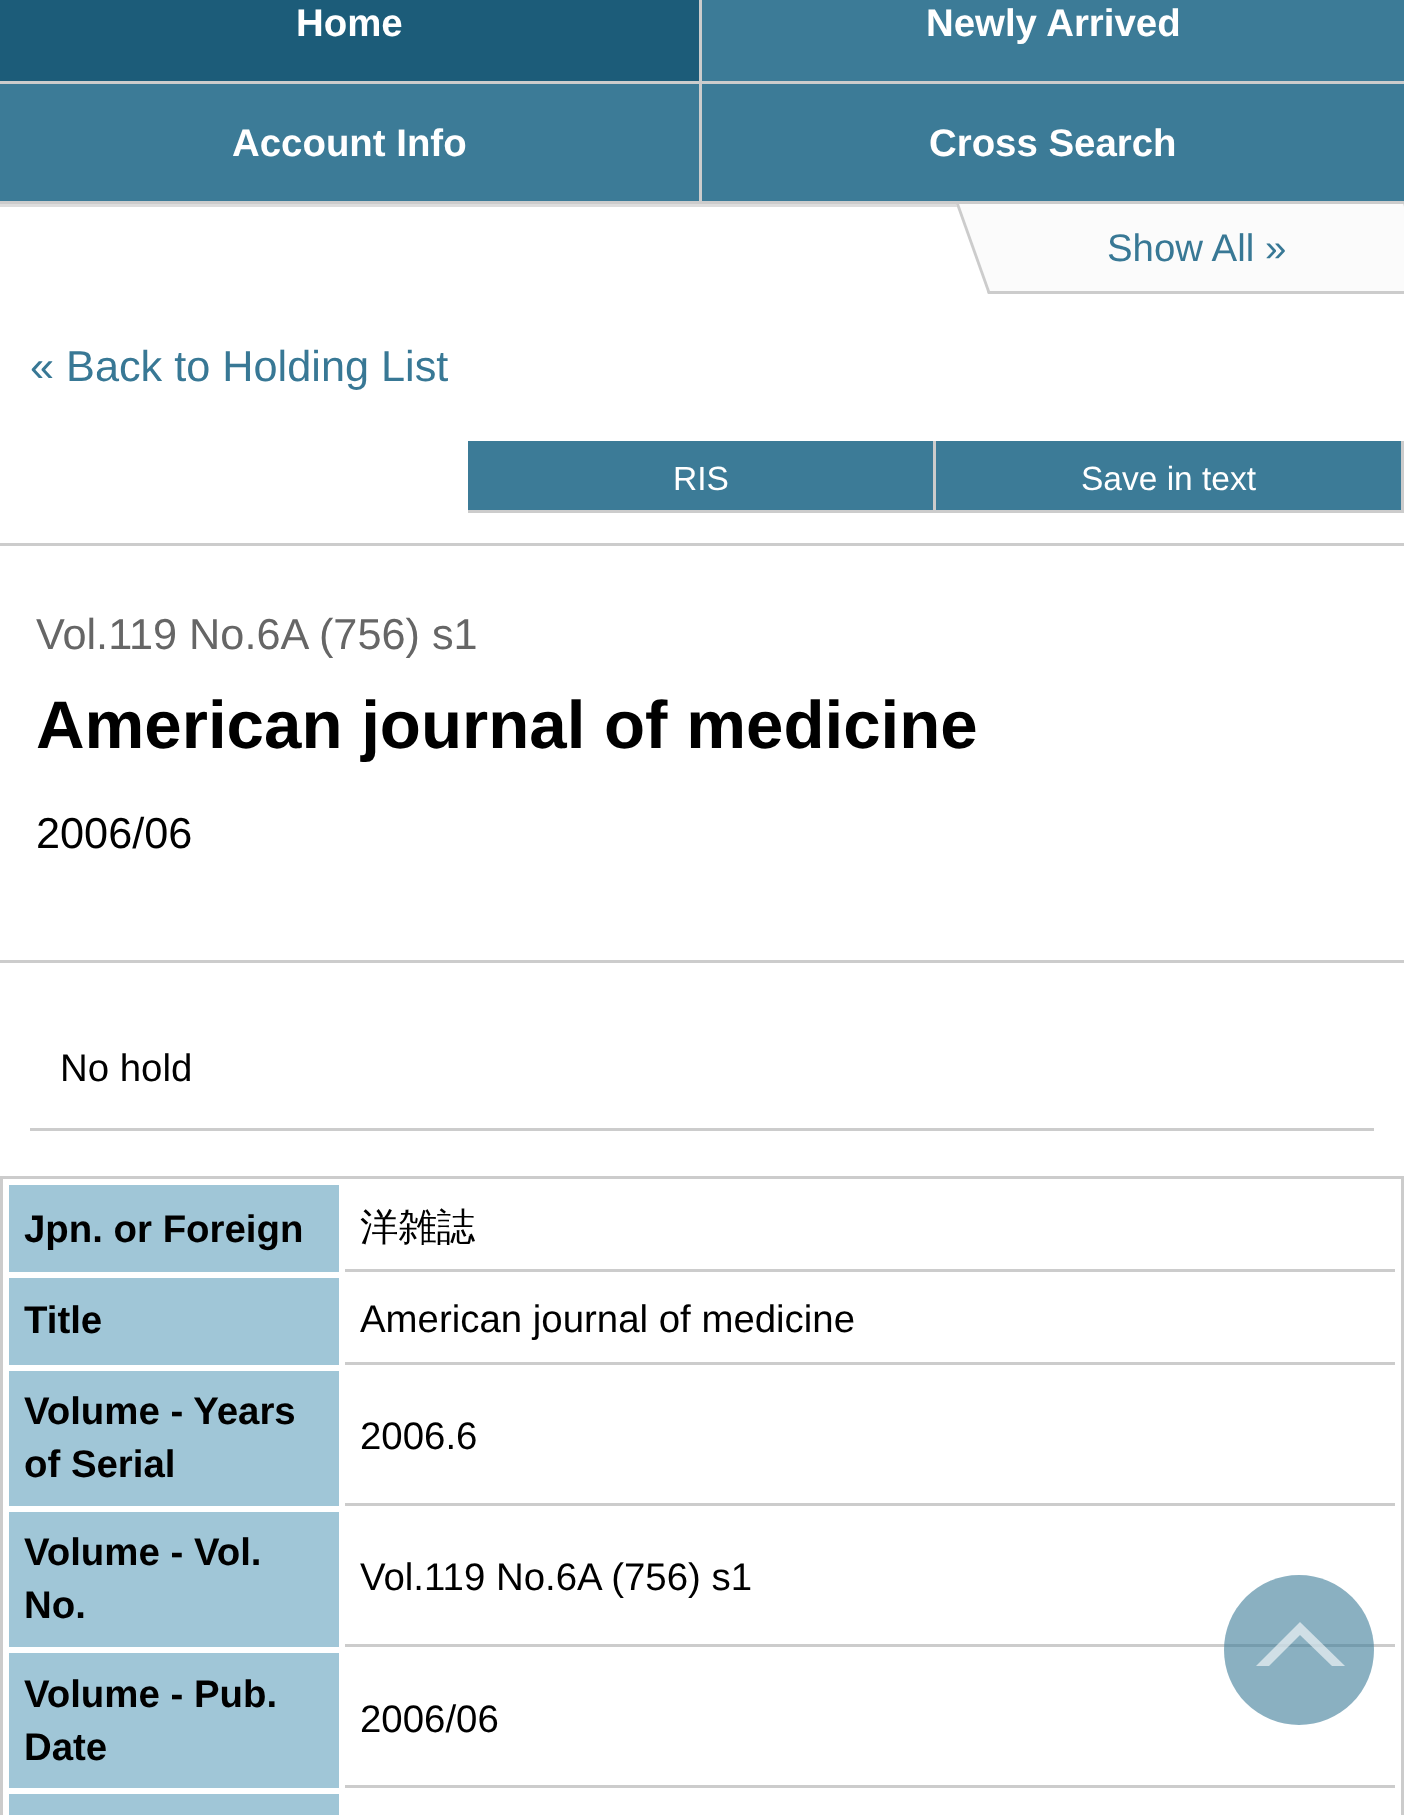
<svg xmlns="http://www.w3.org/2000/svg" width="1404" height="1815">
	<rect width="100%" height="100%" fill="#FFFFFF" />
	<rect x="0" y="204" width="1404" height="3" fill="#DDDDDD" />
	<rect x="699" y="0" width="3" height="204" fill="#CCCCCC" />
	<rect x="0" y="81" width="1404" height="3" fill="#CCCCCC" />
	<rect x="0" y="0" width="699" height="81" fill="#1C5C79" />
	<text x="296" y="36" font-family="Liberation Sans" font-size="38.4" font-weight="700" fill="#FFFFFF">Home</text>
	<rect x="702" y="0" width="702" height="81" fill="#3C7B97" />
	<text x="926" y="36" font-family="Liberation Sans" font-size="38.4" font-weight="700" fill="#FFFFFF">Newly Arrived</text>
	<rect x="0" y="201" width="1404" height="3" fill="#CCCCCC" />
	<rect x="0" y="84" width="699" height="117" fill="#3C7B97" />
	<text x="232" y="156" font-family="Liberation Sans" font-size="38.4" font-weight="700" fill="#FFFFFF">Account Info</text>
	<rect x="702" y="84" width="702" height="117" fill="#3C7B97" />
	<text x="929" y="156" font-family="Liberation Sans" font-size="38.4" font-weight="700" fill="#FFFFFF">Cross Search</text>
	<path d="M956 204H1403L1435 294H988Z" fill="#FBFBFB" />
	<path d="M987 291H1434L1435 294H988Z" fill="#CCCCCC" />
	<path d="M956 204H959L991 294H988Z" fill="#CCCCCC" />
	<text x="1107" y="261" font-family="Liberation Sans" font-size="38.4" fill="#387895">Show All »</text>
	<text x="30" y="381" font-family="Liberation Sans" font-size="43.25" fill="#387895">« Back to Holding List</text>
	<rect x="468" y="441" width="465" height="69" fill="#3C7B97" />
	<rect x="933" y="441" width="3" height="72" fill="#CCCCCC" />
	<rect x="468" y="510" width="468" height="3" fill="#CCCCCC" />
	<text x="673" y="490" font-family="Liberation Sans" font-size="33.5" fill="#FFFFFF">RIS</text>
	<rect x="936" y="441" width="465" height="69" fill="#3C7B97" />
	<rect x="1401" y="441" width="3" height="72" fill="#CCCCCC" />
	<rect x="936" y="510" width="468" height="3" fill="#CCCCCC" />
	<text x="1081" y="490" font-family="Liberation Sans" font-size="33.5" fill="#FFFFFF">Save in text</text>
	<rect x="0" y="543" width="1404" height="3" fill="#CCCCCC" />
	<rect x="0" y="960" width="1404" height="3" fill="#CCCCCC" />
	<text x="36" y="649" font-family="Liberation Sans" font-size="43.25" fill="#666666">Vol.119 No.6A (756) s1</text>
	<text x="36" y="748" font-family="Liberation Sans" font-size="67.25" font-weight="700" fill="#000000">American journal of medicine</text>
	<text x="36" y="848" font-family="Liberation Sans" font-size="43.25" fill="#000000">2006/06</text>
	<rect x="30" y="1128" width="1344" height="3" fill="#CCCCCC" />
	<text x="60" y="1081" font-family="Liberation Sans" font-size="38.4" fill="#000000">No hold</text>
	<rect x="1.5" y="1177.5" width="1401" height="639" fill="none" stroke="#CCCCCC" stroke-width="3" />
	<rect x="9" y="1185" width="330" height="87" fill="#A0C6D7" />
	<text x="24" y="1242" font-family="Liberation Sans" font-size="38.4" font-weight="700" fill="#000000">Jpn. or Foreign</text>
	<rect x="345" y="1269" width="1050" height="3" fill="#CCCCCC" />
	<text x="360" y="1240" font-family="WenQuanYi Zen Hei" font-size="38.4" font-weight="500" fill="#000000">洋雑誌</text>
	<rect x="9" y="1278" width="330" height="87" fill="#A0C6D7" />
	<text x="24" y="1333" font-family="Liberation Sans" font-size="38.4" font-weight="700" fill="#000000">Title</text>
	<rect x="345" y="1362" width="1050" height="3" fill="#CCCCCC" />
	<text x="360" y="1332" font-family="Liberation Sans" font-size="38.4" fill="#000000">American journal of medicine</text>
	<rect x="9" y="1371" width="330" height="135" fill="#A0C6D7" />
	<g font-family="Liberation Sans" font-size="38.4" font-weight="700" fill="#000000">
		<text x="24" y="1424">Volume - Years</text>
		<text x="24" y="1477">of Serial</text>
	</g>
	<rect x="345" y="1503" width="1050" height="3" fill="#CCCCCC" />
	<text x="360" y="1449" font-family="Liberation Sans" font-size="38.4" fill="#000000">2006.6</text>
	<rect x="9" y="1512" width="330" height="135" fill="#A0C6D7" />
	<g font-family="Liberation Sans" font-size="38.4" font-weight="700" fill="#000000">
		<text x="24" y="1565">Volume - Vol.</text>
		<text x="24" y="1618">No.</text>
	</g>
	<rect x="345" y="1644" width="1050" height="3" fill="#CCCCCC" />
	<text x="360" y="1590" font-family="Liberation Sans" font-size="38.4" fill="#000000">Vol.119 No.6A (756) s1</text>
	<rect x="9" y="1653" width="330" height="135" fill="#A0C6D7" />
	<g font-family="Liberation Sans" font-size="38.4" font-weight="700" fill="#000000">
		<text x="24" y="1707">Volume - Pub.</text>
		<text x="24" y="1760">Date</text>
	</g>
	<rect x="345" y="1785" width="1050" height="3" fill="#CCCCCC" />
	<text x="360" y="1732" font-family="Liberation Sans" font-size="38.4" fill="#000000">2006/06</text>
	<rect x="9" y="1794" width="330" height="21" fill="#A0C6D7" />
	<circle cx="1299" cy="1650" r="75" fill="#3C7B97" fill-opacity="0.6" />
	<path d="M1256 1666L1300 1622V1635L1269 1666Z" fill="#FFFFFF" fill-opacity="0.6" />
	<path d="M1300 1622L1345 1666H1332L1300 1635Z" fill="#FFFFFF" fill-opacity="0.6" />
</svg>
